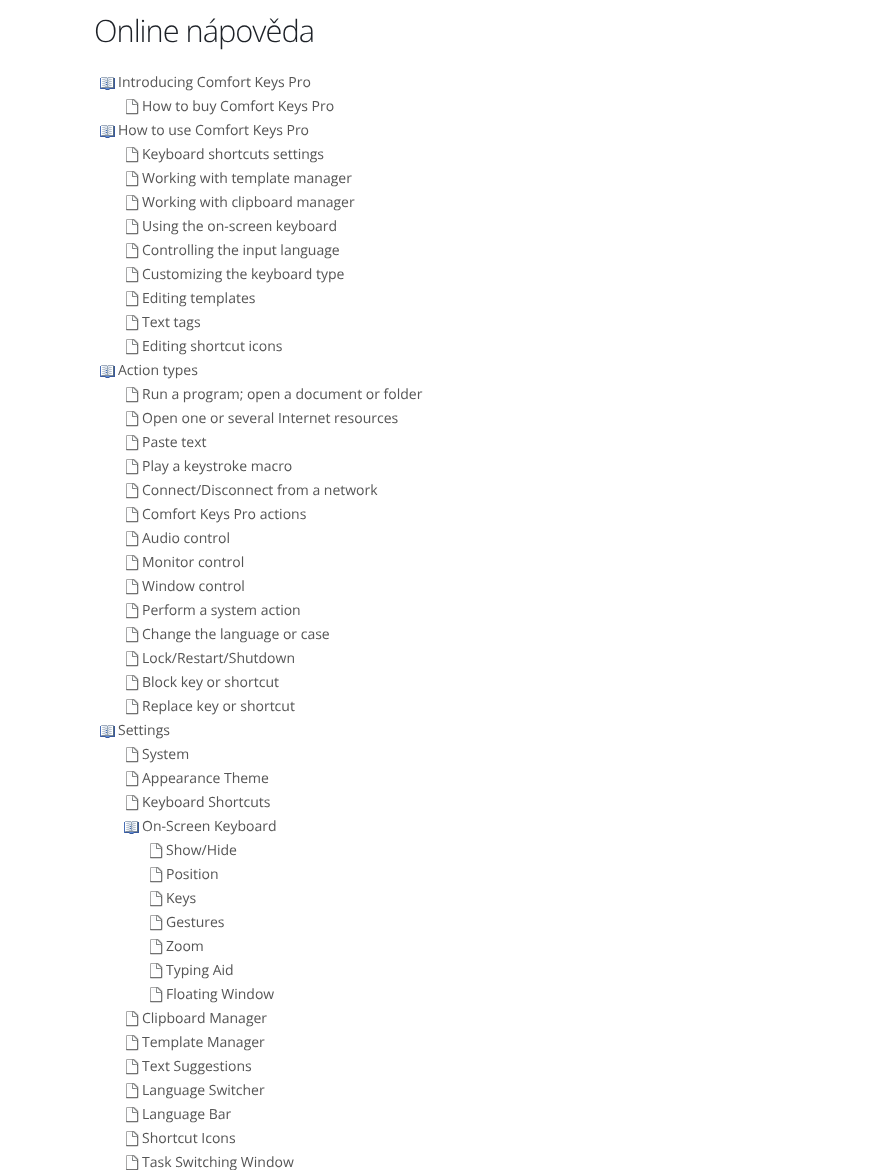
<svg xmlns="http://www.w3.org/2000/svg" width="878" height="1170">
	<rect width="100%" height="100%" fill="#FFFFFF" />
	<text x="94" y="42" font-family="Open Sans" font-size="30.75" font-weight="300" letter-spacing="-1" fill="#1D2127">Online nápověda</text>
	<image x="100" y="77" width="15" height="13" href="assets/img1.png" />
	<text x="118" y="87" font-family="Open Sans" font-size="14" fill="#555555">Introducing Comfort Keys Pro</text>
	<image x="126" y="99" width="13" height="16" href="assets/img2.png" />
	<text x="142" y="111" font-family="Open Sans" font-size="14" fill="#555555">How to buy Comfort Keys Pro</text>
	<image x="100" y="125" width="15" height="13" href="assets/img1.png" />
	<text x="118" y="135" font-family="Open Sans" font-size="14" fill="#555555">How to use Comfort Keys Pro</text>
	<image x="126" y="147" width="13" height="16" href="assets/img2.png" />
	<text x="142" y="159" font-family="Open Sans" font-size="14" fill="#555555">Keyboard shortcuts settings</text>
	<image x="126" y="171" width="13" height="16" href="assets/img2.png" />
	<text x="142" y="183" font-family="Open Sans" font-size="14" fill="#555555">Working with template manager</text>
	<image x="126" y="195" width="13" height="16" href="assets/img2.png" />
	<text x="142" y="207" font-family="Open Sans" font-size="14" fill="#555555">Working with clipboard manager</text>
	<image x="126" y="219" width="13" height="16" href="assets/img2.png" />
	<text x="142" y="231" font-family="Open Sans" font-size="14" fill="#555555">Using the on-screen keyboard</text>
	<image x="126" y="243" width="13" height="16" href="assets/img2.png" />
	<text x="142" y="255" font-family="Open Sans" font-size="14" fill="#555555">Controlling the input language</text>
	<image x="126" y="267" width="13" height="16" href="assets/img2.png" />
	<text x="142" y="279" font-family="Open Sans" font-size="14" fill="#555555">Customizing the keyboard type</text>
	<image x="126" y="291" width="13" height="16" href="assets/img2.png" />
	<text x="142" y="303" font-family="Open Sans" font-size="14" fill="#555555">Editing templates</text>
	<image x="126" y="315" width="13" height="16" href="assets/img2.png" />
	<text x="142" y="327" font-family="Open Sans" font-size="14" fill="#555555">Text tags</text>
	<image x="126" y="339" width="13" height="16" href="assets/img2.png" />
	<text x="142" y="351" font-family="Open Sans" font-size="14" fill="#555555">Editing shortcut icons</text>
	<image x="100" y="365" width="15" height="13" href="assets/img1.png" />
	<text x="118" y="375" font-family="Open Sans" font-size="14" fill="#555555">Action types</text>
	<image x="126" y="387" width="13" height="16" href="assets/img2.png" />
	<text x="142" y="399" font-family="Open Sans" font-size="14" fill="#555555">Run a program; open a document or folder</text>
	<image x="126" y="411" width="13" height="16" href="assets/img2.png" />
	<text x="142" y="423" font-family="Open Sans" font-size="14" fill="#555555">Open one or several Internet resources</text>
	<image x="126" y="435" width="13" height="16" href="assets/img2.png" />
	<text x="142" y="447" font-family="Open Sans" font-size="14" fill="#555555">Paste text</text>
	<image x="126" y="459" width="13" height="16" href="assets/img2.png" />
	<text x="142" y="471" font-family="Open Sans" font-size="14" fill="#555555">Play a keystroke macro</text>
	<image x="126" y="483" width="13" height="16" href="assets/img2.png" />
	<text x="142" y="495" font-family="Open Sans" font-size="14" fill="#555555">Connect/Disconnect from a network</text>
	<image x="126" y="507" width="13" height="16" href="assets/img2.png" />
	<text x="142" y="519" font-family="Open Sans" font-size="14" fill="#555555">Comfort Keys Pro actions</text>
	<image x="126" y="531" width="13" height="16" href="assets/img2.png" />
	<text x="142" y="543" font-family="Open Sans" font-size="14" fill="#555555">Audio control</text>
	<image x="126" y="555" width="13" height="16" href="assets/img2.png" />
	<text x="142" y="567" font-family="Open Sans" font-size="14" fill="#555555">Monitor control</text>
	<image x="126" y="579" width="13" height="16" href="assets/img2.png" />
	<text x="142" y="591" font-family="Open Sans" font-size="14" fill="#555555">Window control</text>
	<image x="126" y="603" width="13" height="16" href="assets/img2.png" />
	<text x="142" y="615" font-family="Open Sans" font-size="14" fill="#555555">Perform a system action</text>
	<image x="126" y="627" width="13" height="16" href="assets/img2.png" />
	<text x="142" y="639" font-family="Open Sans" font-size="14" fill="#555555">Change the language or case</text>
	<image x="126" y="651" width="13" height="16" href="assets/img2.png" />
	<text x="142" y="663" font-family="Open Sans" font-size="14" fill="#555555">Lock/Restart/Shutdown</text>
	<image x="126" y="675" width="13" height="16" href="assets/img2.png" />
	<text x="142" y="687" font-family="Open Sans" font-size="14" fill="#555555">Block key or shortcut</text>
	<image x="126" y="699" width="13" height="16" href="assets/img2.png" />
	<text x="142" y="711" font-family="Open Sans" font-size="14" fill="#555555">Replace key or shortcut</text>
	<image x="100" y="725" width="15" height="13" href="assets/img1.png" />
	<text x="118" y="735" font-family="Open Sans" font-size="14" fill="#555555">Settings</text>
	<image x="126" y="747" width="13" height="16" href="assets/img2.png" />
	<text x="142" y="759" font-family="Open Sans" font-size="14" fill="#555555">System</text>
	<image x="126" y="771" width="13" height="16" href="assets/img2.png" />
	<text x="142" y="783" font-family="Open Sans" font-size="14" fill="#555555">Appearance Theme</text>
	<image x="126" y="795" width="13" height="16" href="assets/img2.png" />
	<text x="142" y="807" font-family="Open Sans" font-size="14" fill="#555555">Keyboard Shortcuts</text>
	<image x="124" y="821" width="15" height="13" href="assets/img1.png" />
	<text x="142" y="831" font-family="Open Sans" font-size="14" fill="#555555">On-Screen Keyboard</text>
	<image x="150" y="843" width="13" height="16" href="assets/img2.png" />
	<text x="166" y="855" font-family="Open Sans" font-size="14" fill="#555555">Show/Hide</text>
	<image x="150" y="867" width="13" height="16" href="assets/img2.png" />
	<text x="166" y="879" font-family="Open Sans" font-size="14" fill="#555555">Position</text>
	<image x="150" y="891" width="13" height="16" href="assets/img2.png" />
	<text x="166" y="903" font-family="Open Sans" font-size="14" fill="#555555">Keys</text>
	<image x="150" y="915" width="13" height="16" href="assets/img2.png" />
	<text x="166" y="927" font-family="Open Sans" font-size="14" fill="#555555">Gestures</text>
	<image x="150" y="939" width="13" height="16" href="assets/img2.png" />
	<text x="166" y="951" font-family="Open Sans" font-size="14" fill="#555555">Zoom</text>
	<image x="150" y="963" width="13" height="16" href="assets/img2.png" />
	<text x="166" y="975" font-family="Open Sans" font-size="14" fill="#555555">Typing Aid</text>
	<image x="150" y="987" width="13" height="16" href="assets/img2.png" />
	<text x="166" y="999" font-family="Open Sans" font-size="14" fill="#555555">Floating Window</text>
	<image x="126" y="1011" width="13" height="16" href="assets/img2.png" />
	<text x="142" y="1023" font-family="Open Sans" font-size="14" fill="#555555">Clipboard Manager</text>
	<image x="126" y="1035" width="13" height="16" href="assets/img2.png" />
	<text x="142" y="1047" font-family="Open Sans" font-size="14" fill="#555555">Template Manager</text>
	<image x="126" y="1059" width="13" height="16" href="assets/img2.png" />
	<text x="142" y="1071" font-family="Open Sans" font-size="14" fill="#555555">Text Suggestions</text>
	<image x="126" y="1083" width="13" height="16" href="assets/img2.png" />
	<text x="142" y="1095" font-family="Open Sans" font-size="14" fill="#555555">Language Switcher</text>
	<image x="126" y="1107" width="13" height="16" href="assets/img2.png" />
	<text x="142" y="1119" font-family="Open Sans" font-size="14" fill="#555555">Language Bar</text>
	<image x="126" y="1131" width="13" height="16" href="assets/img2.png" />
	<text x="142" y="1143" font-family="Open Sans" font-size="14" fill="#555555">Shortcut Icons</text>
	<image x="126" y="1155" width="13" height="15" href="assets/img3.png" />
	<text x="142" y="1167" font-family="Open Sans" font-size="14" fill="#555555">Task Switching Window</text>
</svg>
